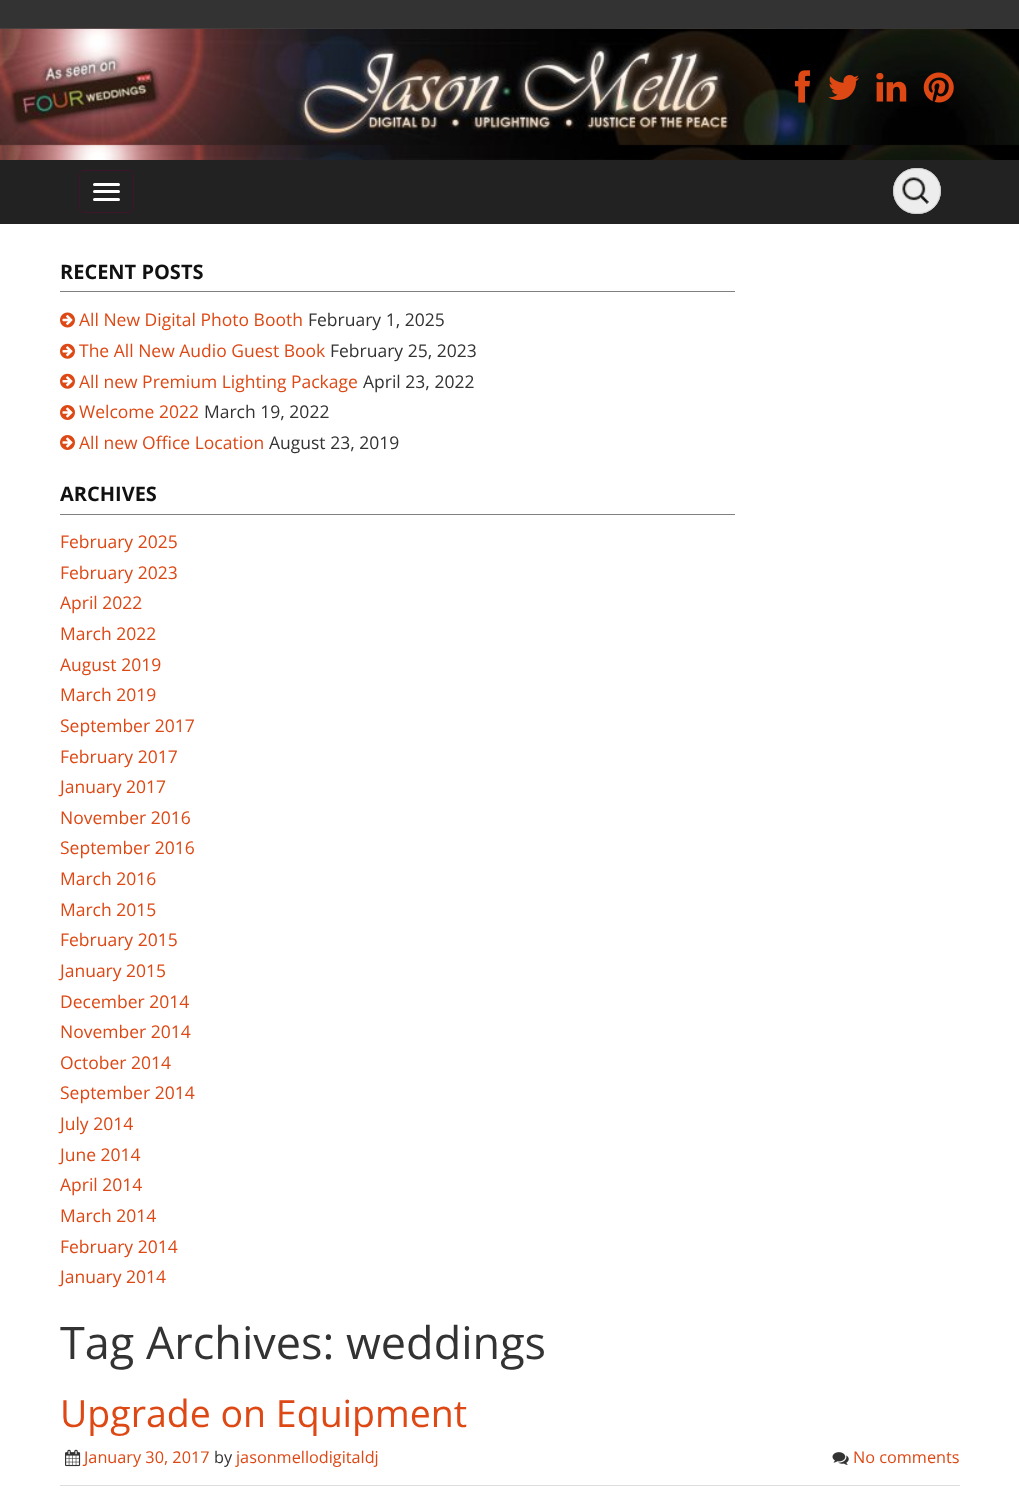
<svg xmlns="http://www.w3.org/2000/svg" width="1019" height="1499">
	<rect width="100%" height="100%" fill="#FFFFFF" />
	<rect x="0" y="0" width="1019" height="28" fill="#333333" />
	<rect x="0" y="28" width="1019" height="1" fill="#444444" />
	<image x="0" y="28" width="1019" height="132" href="assets/img1.png" />
	<image x="795" y="70" width="15" height="33" href="assets/img2.png" />
	<image x="828" y="75" width="31" height="25" href="assets/img3.png" />
	<image x="876" y="72" width="31" height="30" href="assets/img4.png" />
	<image x="923" y="72" width="31" height="31" href="assets/img5.png" />
	<rect x="0" y="160" width="1019" height="64" fill="#222222" />
	<rect x="79.5" y="170.5" width="54" height="42" rx="4.5" fill="none" stroke="#3E152B" />
	<rect x="93" y="183" width="27" height="3" rx="1.5" fill="#FFFFFF" />
	<rect x="93" y="190" width="27" height="3" rx="1.5" fill="#FFFFFF" />
	<rect x="93" y="198" width="27" height="3" rx="1.5" fill="#FFFFFF" />
	<rect x="893" y="168" width="48" height="46" rx="23" fill="#EDEDED" />
	<image x="902" y="177" width="27" height="27" href="assets/img6.png" />
	<rect x="893.5" y="168.5" width="47" height="45" rx="22.5" fill="none" stroke="#CCCCCC" />
	<text x="60" y="279" font-family="Open Sans" font-size="20" font-weight="700" fill="#111111">RECENT POSTS</text>
	<rect x="60" y="291" width="675" height="1" fill="#808080" />
	<image x="60" y="312" width="15" height="16" href="assets/img7.png" />
	<text x="79" y="326" font-family="Open Sans" font-size="17.5" fill="#DD4814">All New Digital Photo Booth</text>
	<text x="308" y="326" font-family="Open Sans" font-size="17.5" fill="#333333">February 1, 2025</text>
	<image x="60" y="343" width="15" height="16" href="assets/img8.png" />
	<text x="79" y="357" font-family="Open Sans" font-size="17.5" fill="#DD4814">The All New Audio Guest Book</text>
	<text x="330" y="357" font-family="Open Sans" font-size="17.5" fill="#333333">February 25, 2023</text>
	<image x="60" y="373" width="15" height="16" href="assets/img8.png" />
	<text x="79" y="388" font-family="Open Sans" font-size="17.5" fill="#DD4814">All new Premium Lighting Package</text>
	<text x="363" y="388" font-family="Open Sans" font-size="17.5" fill="#333333">April 23, 2022</text>
	<image x="60" y="405" width="15" height="15" href="assets/img9.png" />
	<text x="79" y="418" font-family="Open Sans" font-size="17.5" fill="#DD4814">Welcome 2022</text>
	<text x="204" y="418" font-family="Open Sans" font-size="17.5" fill="#333333">March 19, 2022</text>
	<image x="60" y="435" width="15" height="15" href="assets/img9.png" />
	<text x="79" y="449" font-family="Open Sans" font-size="17.5" fill="#DD4814">All new Office Location</text>
	<text x="269" y="449" font-family="Open Sans" font-size="17.5" fill="#333333">August 23, 2019</text>
	<text x="60" y="501" font-family="Open Sans" font-size="20" font-weight="700" fill="#111111">ARCHIVES</text>
	<rect x="60" y="514" width="675" height="1" fill="#808080" />
	<g font-family="Open Sans" font-size="17.5" fill="#DD4814">
		<text x="60" y="548">February 2025</text>
		<text x="60" y="579">February 2023</text>
		<text x="60" y="609">April 2022</text>
		<text x="60" y="640">March 2022</text>
		<text x="60" y="671">August 2019</text>
		<text x="60" y="701">March 2019</text>
		<text x="60" y="732">September 2017</text>
		<text x="60" y="763">February 2017</text>
		<text x="60" y="793">January 2017</text>
		<text x="60" y="824">November 2016</text>
		<text x="60" y="854">September 2016</text>
		<text x="60" y="885">March 2016</text>
		<text x="60" y="916">March 2015</text>
		<text x="60" y="946">February 2015</text>
		<text x="60" y="977">January 2015</text>
		<text x="60" y="1008">December 2014</text>
		<text x="60" y="1038">November 2014</text>
		<text x="60" y="1069">October 2014</text>
		<text x="60" y="1099">September 2014</text>
		<text x="60" y="1130">July 2014</text>
		<text x="60" y="1161">June 2014</text>
		<text x="60" y="1191">April 2014</text>
		<text x="60" y="1222">March 2014</text>
		<text x="60" y="1253">February 2014</text>
		<text x="60" y="1283">January 2014</text>
	</g>
	<text x="60" y="1359" font-family="Open Sans" font-size="45" fill="#333333">Tag Archives: weddings</text>
	<text x="60" y="1427" font-family="Open Sans" font-size="37.5" fill="#DD4814">Upgrade on Equipment</text>
	<image x="65" y="1449" width="16" height="18" href="assets/img10.png" />
	<text x="84" y="1463" font-family="Open Sans" font-size="16.25" fill="#DD4814">January 30, 2017</text>
	<text x="214" y="1463" font-family="Open Sans" font-size="16.25" fill="#333333">by</text>
	<text x="236" y="1463" font-family="Open Sans" font-size="16.25" fill="#DD4814">jasonmellodigitaldj</text>
	<image x="832" y="1452" width="17" height="13" href="assets/img11.png" />
	<text x="853" y="1463" font-family="Open Sans" font-size="16.25" fill="#DD4814">No comments</text>
	<rect x="60" y="1485" width="900" height="1" fill="#DDDDDD" />
</svg>
